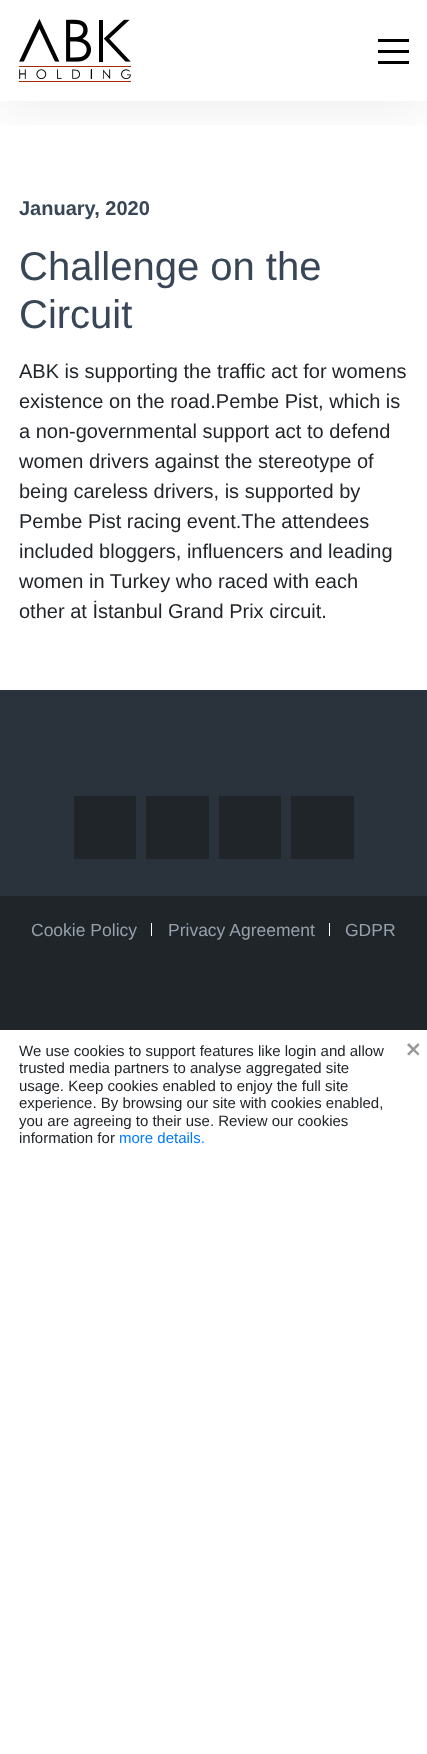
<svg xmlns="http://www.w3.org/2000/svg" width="427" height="1754">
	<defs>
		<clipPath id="clip1"><rect x="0" y="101" width="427" height="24" /></clipPath>
	</defs>
	<rect width="100%" height="100%" fill="#FFFFFF" />
	<g clip-path="url(#clip1)">
		<rect x="0" y="13" width="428" height="101" fill="#000000" fill-opacity="0.06" filter="blur(25px)" />
	</g>
	<image x="19" y="19" width="112" height="63" href="assets/img1.png" />
	<rect x="378" y="39" width="31" height="3" fill="#000000" />
	<rect x="378" y="50" width="31" height="3" fill="#000000" />
	<rect x="378" y="61" width="31" height="3" fill="#000000" />
	<text x="19" y="215" font-family="Liberation Sans" font-size="20" font-weight="700" fill="#384657">January, 2020</text>
	<g font-family="Liberation Sans" font-size="40" fill="#384657">
		<text x="19" y="280">Challenge on the</text>
		<text x="19" y="328">Circuit</text>
	</g>
	<g font-family="Liberation Sans" font-size="20" fill="#212529">
		<text x="19" y="378">ABK is supporting the traffic act for womens</text>
		<text x="19" y="408">existence on the road.Pembe Pist, which is</text>
		<text x="19" y="438">a non-governmental support act to defend</text>
		<text x="19" y="468">women drivers against the stereotype of</text>
		<text x="19" y="498">being careless drivers, is supported by</text>
		<text x="19" y="528">Pembe Pist racing event.The attendees</text>
		<text x="19" y="558">included bloggers, influencers and leading</text>
		<text x="19" y="588">women in Turkey who raced with each</text>
		<text x="19" y="618">other at İstanbul Grand Prix circuit.</text>
	</g>
	<rect x="0" y="690" width="427" height="206" fill="#2A323C" />
	<rect x="74" y="796" width="62" height="63" fill="#1F2529" />
	<rect x="146" y="796" width="63" height="63" fill="#1F2529" />
	<rect x="219" y="796" width="62" height="63" fill="#1F2529" />
	<rect x="291" y="796" width="63" height="63" fill="#1F2529" />
	<rect x="0" y="896" width="427" height="134" fill="#1F2529" />
	<text x="31" y="936" font-family="Liberation Sans" font-size="17.5" fill="#96A1AB">Cookie Policy</text>
	<rect x="151" y="923" width="1" height="13" fill="#FFFFFF" />
	<text x="168" y="936" font-family="Liberation Sans" font-size="17.5" fill="#96A1AB">Privacy Agreement</text>
	<rect x="329" y="923" width="1" height="13" fill="#FFFFFF" />
	<text x="345" y="936" font-family="Liberation Sans" font-size="17.5" fill="#96A1AB">GDPR</text>
	<g font-family="Liberation Sans" font-size="15" fill="#212529">
		<text x="19" y="1056">We use cookies to support features like login and allow</text>
		<text x="19" y="1073">trusted media partners to analyse aggregated site</text>
		<text x="19" y="1091">usage. Keep cookies enabled to enjoy the full site</text>
		<text x="19" y="1108">experience. By browsing our site with cookies enabled,</text>
		<text x="19" y="1126">you are agreeing to their use. Review our cookies</text>
		<text x="19" y="1143">information for</text>
	</g>
	<text x="119" y="1143" font-family="Liberation Sans" font-size="15" fill="#007BFF">more details.</text>
	<path d="M418 1043L419.5 1045L409 1055.5L407 1054Z" fill="#979797" />
	<path d="M407 1045L409 1043L419.5 1054L418 1055.5Z" fill="#979797" />
</svg>
